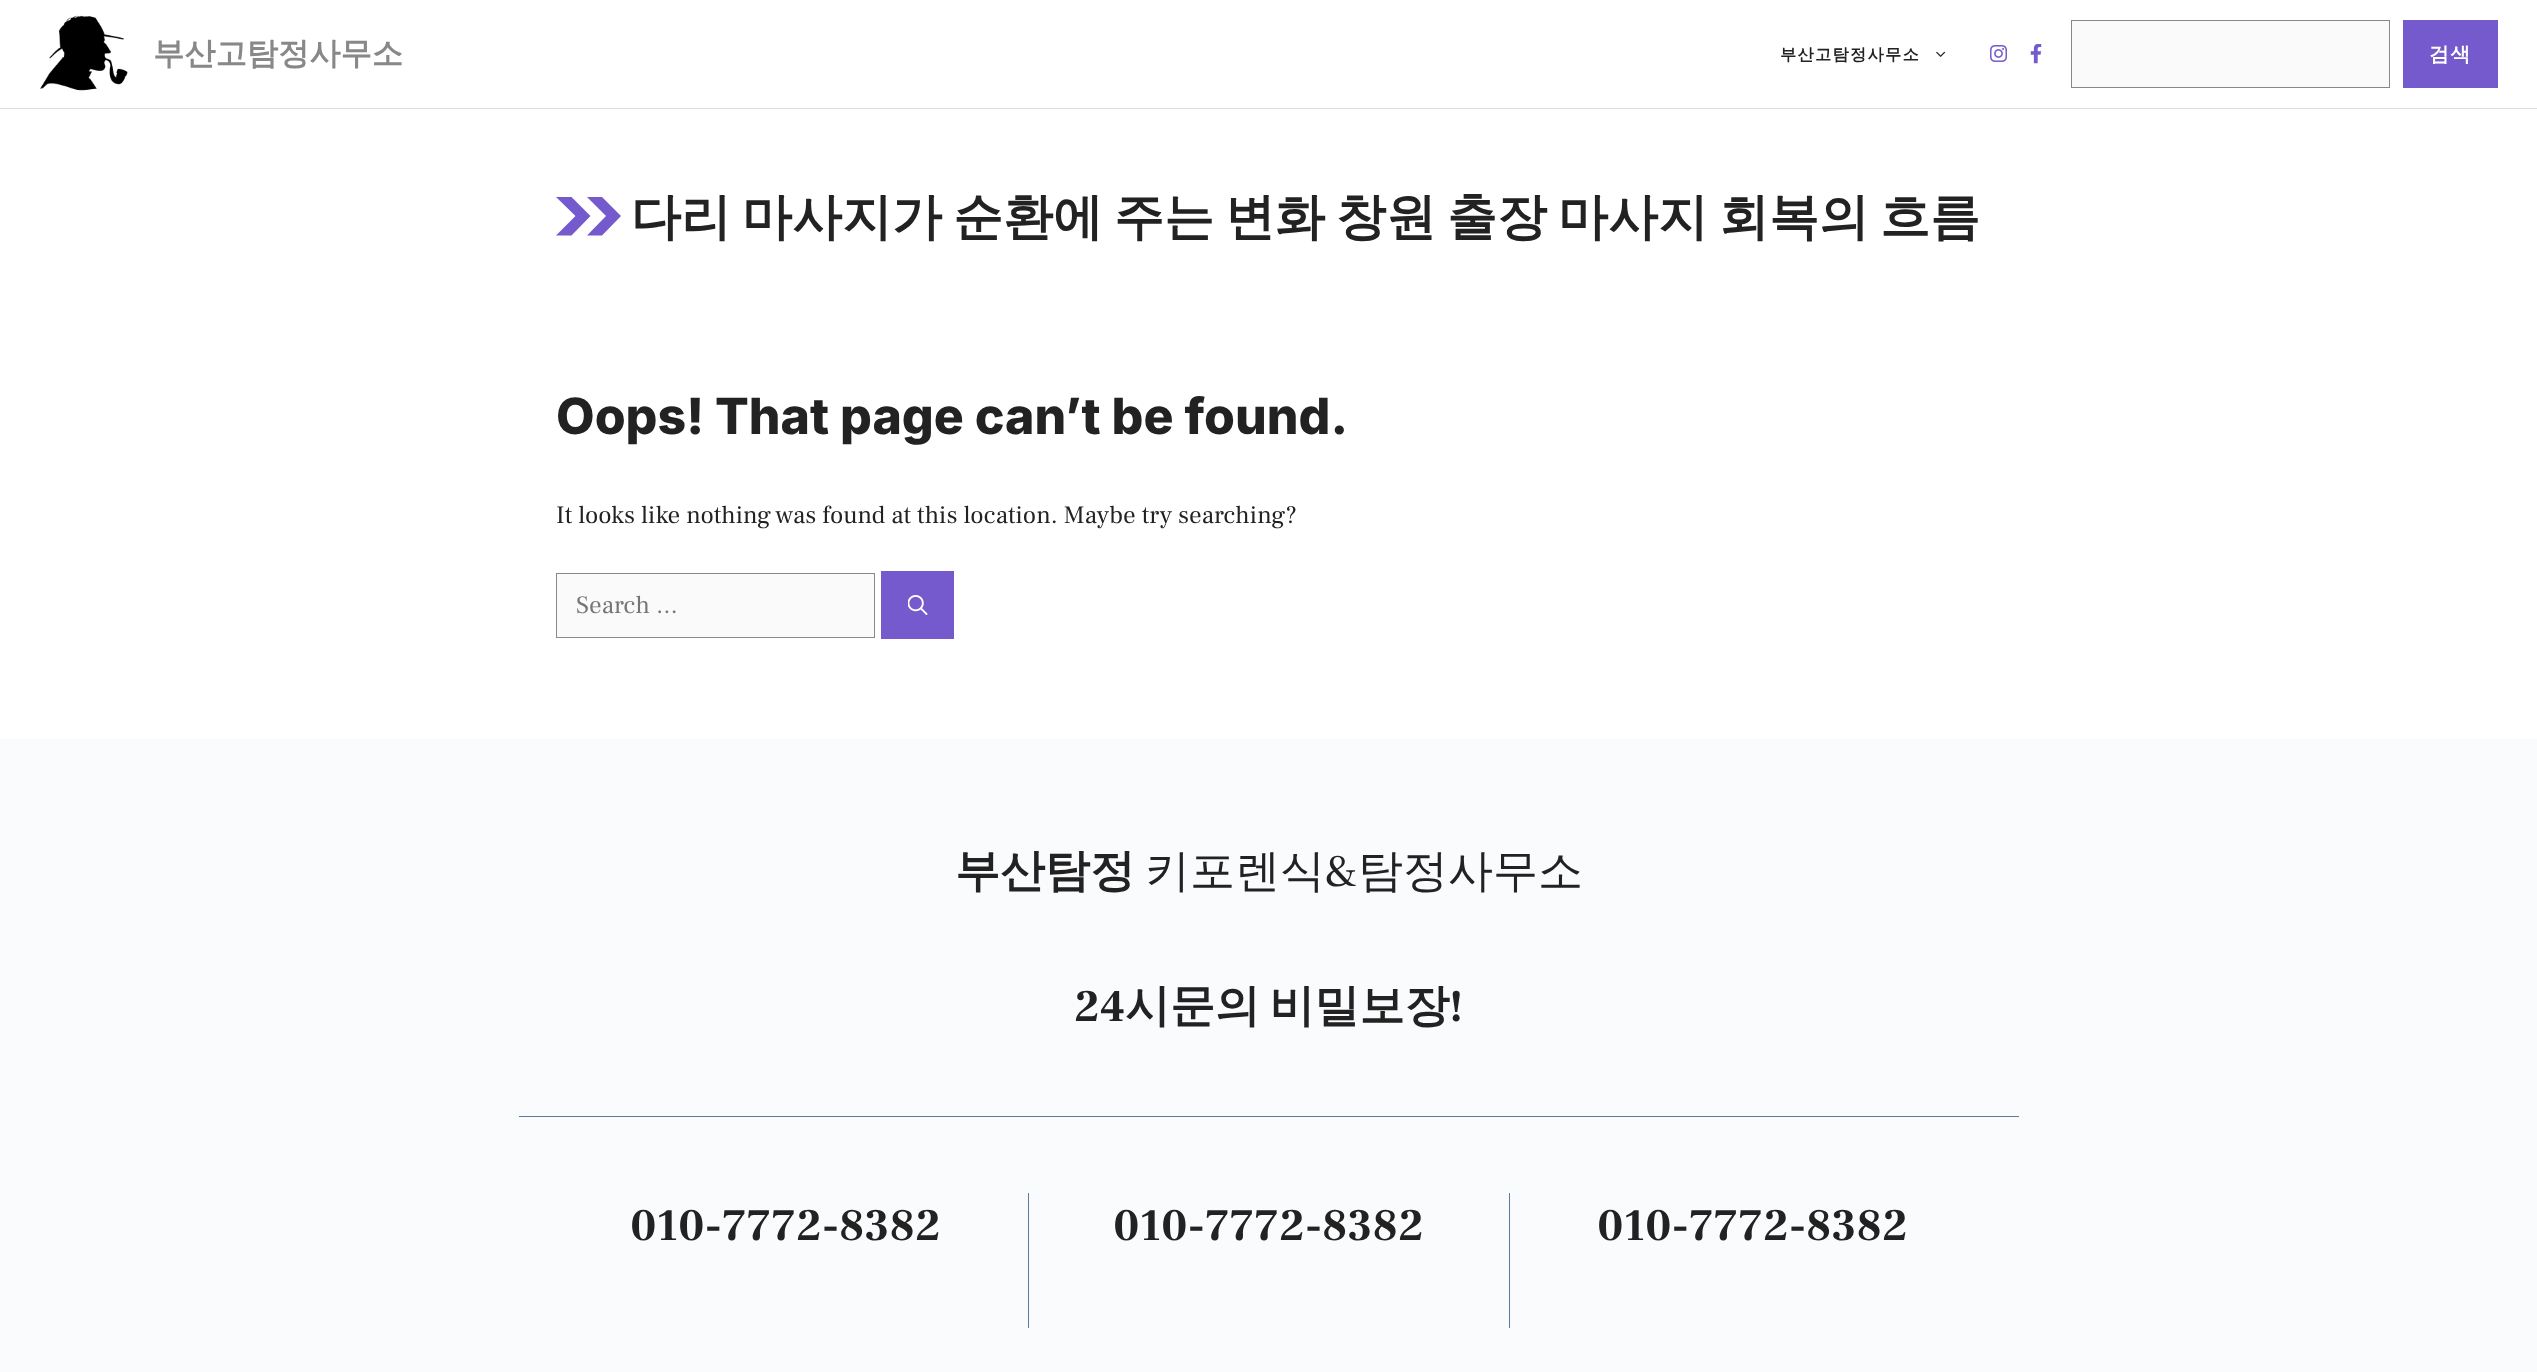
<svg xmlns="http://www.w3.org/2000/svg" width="2537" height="1372">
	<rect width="100%" height="100%" fill="#FFFFFF" />
	<rect x="0" y="108" width="2537" height="1" fill="#DDDDDD" />
	<image x="40" y="15" width="88" height="76" href="assets/img1.png" />
	<text x="153" y="64" font-family="WenQuanYi Zen Hei" font-size="31.25" font-weight="700" fill="#888888">부산고탐정사무소</text>
	<text x="1780" y="60" font-family="WenQuanYi Zen Hei" font-size="16.25" font-weight="700" letter-spacing="1.25" fill="#222222">부산고탐정사무소</text>
	<image x="1936" y="51" width="10" height="6" href="assets/img2.png" />
	<image x="1990" y="45" width="17" height="17" href="assets/img3.png" />
	<image x="2030" y="44" width="12" height="20" href="assets/img4.png" />
	<rect x="2071.5" y="20.5" width="318" height="67" fill="#FAFAFA" stroke="#888888" />
	<rect x="2403" y="20" width="95" height="68" fill="#745ACC" />
	<text x="2429" y="61" font-family="WenQuanYi Zen Hei" font-size="20" font-weight="700" letter-spacing="1.25" fill="#FFFFFF">검색</text>
	<path d="M606 216L587 235.5H602L621 216L602 197H587Z" fill="#745ACC" />
	<path d="M575.5 216L556 235.5H571.5L590.5 216L571.5 197H556Z" fill="#745ACC" />
	<text x="631" y="234" word-spacing="-4" font-family="WenQuanYi Zen Hei" font-size="50" font-weight="700" fill="#222222">다리 마사지가 순환에 주는 변화 창원 출장 마사지 회복의 흐름</text>
	<text x="556" y="434" font-family="Inter" font-size="50" font-weight="800" fill="#222222">Oops! That page can’t be found.</text>
	<text x="556" y="523" font-family="Frank Ruhl Libre" font-size="25" fill="#222222">It looks like nothing was found at this location. Maybe try searching?</text>
	<rect x="556.5" y="573.5" width="318" height="64" fill="#FAFAFA" stroke="#888888" />
	<text x="576" y="613" font-family="Frank Ruhl Libre" font-size="25" fill="#757575">Search …</text>
	<rect x="881" y="571" width="73" height="68" fill="#745ACC" />
	<image x="908" y="595" width="20" height="20" href="assets/img5.png" />
	<rect x="0" y="739" width="2537" height="633" fill="#FAFBFC" />
	<text x="955" y="886" font-family="WenQuanYi Zen Hei" font-size="45" font-weight="700" fill="#222222">부산탐정</text>
	<text x="1145" y="886" font-family="WenQuanYi Zen Hei" font-size="45" font-weight="500" fill="#222222">키포렌식</text>
	<text x="1325" y="886" font-family="Frank Ruhl Libre" font-size="45" fill="#222222">&amp;</text>
	<text x="1358" y="886" font-family="WenQuanYi Zen Hei" font-size="45" font-weight="500" fill="#222222">탐정사무소</text>
	<text x="1074" y="1021" font-family="Frank Ruhl Libre" font-size="45" font-weight="700" fill="#222222">24</text>
	<text x="1125" y="1021" word-spacing="-4" font-family="WenQuanYi Zen Hei" font-size="45" font-weight="700" fill="#222222">시문의 비밀보장</text>
	<text x="1449" y="1021" font-family="Frank Ruhl Libre" font-size="45" font-weight="700" fill="#222222">!</text>
	<rect x="519" y="1116" width="1500" height="1" fill="#5C7A99" />
	<text x="630" y="1240" font-family="Frank Ruhl Libre" font-size="45" font-weight="700" fill="#222222">010-7772-8382</text>
	<rect x="1509" y="1193" width="1" height="135" fill="#5C7A99" />
	<rect x="1028" y="1193" width="1" height="135" fill="#5C7A99" />
	<g font-family="Frank Ruhl Libre" font-size="45" font-weight="700" fill="#222222">
		<text x="1113" y="1240">010-7772-8382</text>
		<text x="1597" y="1240">010-7772-8382</text>
	</g>
</svg>
